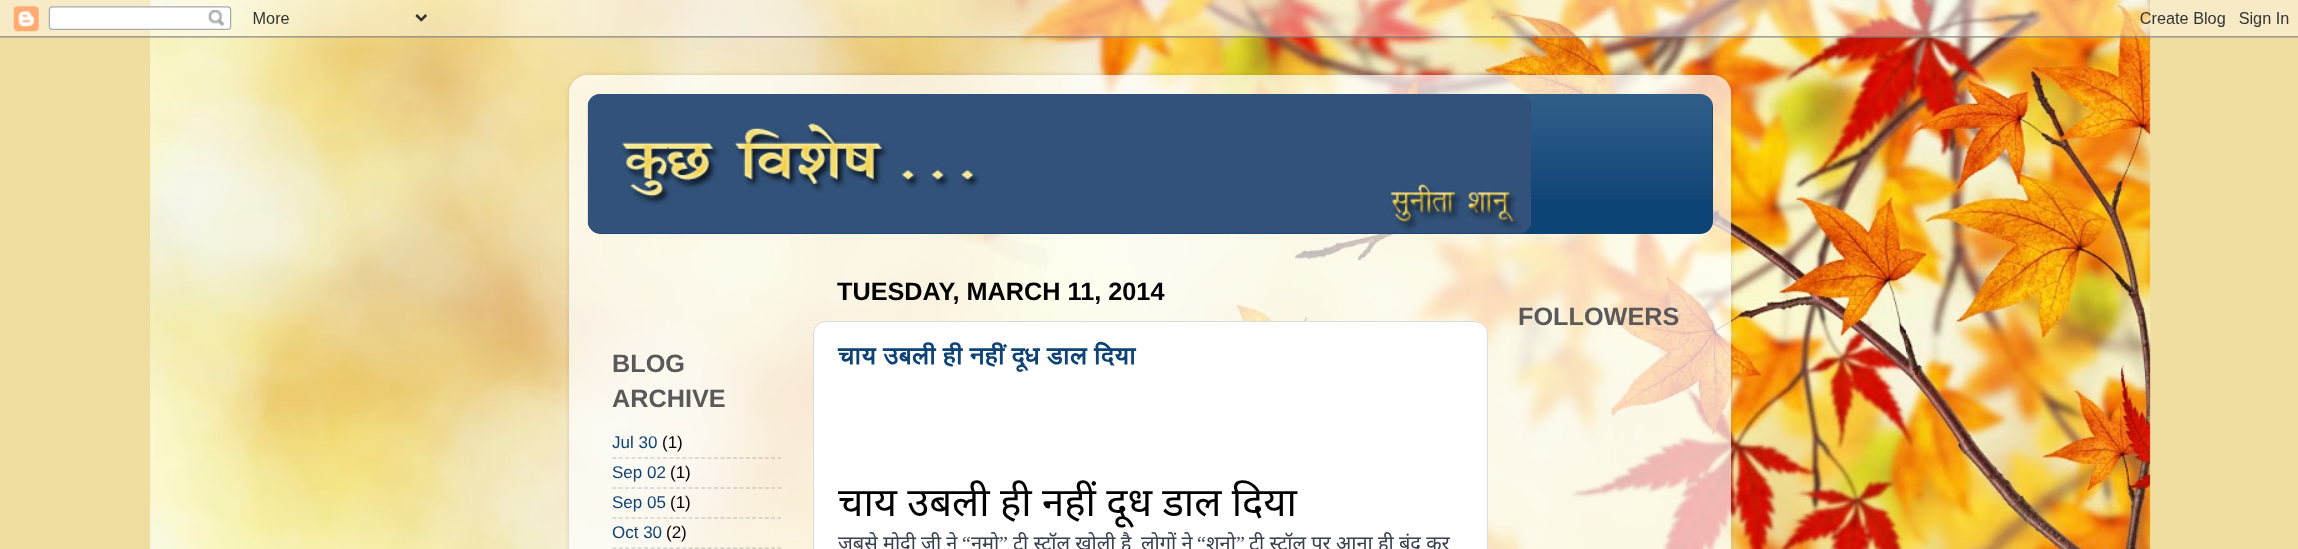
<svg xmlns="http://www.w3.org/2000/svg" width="2298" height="549">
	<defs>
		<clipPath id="clip1"><path d="M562 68H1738V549H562ZM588 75H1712C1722.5 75 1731 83.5 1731 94V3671C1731 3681.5 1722.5 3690 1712 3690H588C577.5 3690 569 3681.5 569 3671V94C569 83.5 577.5 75 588 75Z" clip-rule="evenodd" /></clipPath>
	</defs>
	<rect width="100%" height="100%" fill="#F0DEA0" />
	<image x="149" y="0" width="2002" height="549" href="assets/img1.png" />
	<image x="0" y="0" width="2298" height="38" href="assets/img2.png" />
	<g clip-path="url(#clip1)">
		<rect x="569" y="75" width="1162" height="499" rx="19" fill="#000000" fill-opacity="0.15" filter="blur(2px)" />
	</g>
	<image x="568" y="75" width="1164" height="474" href="assets/img3.png" />
	<rect x="588" y="94" width="1125" height="140" rx="13" fill="#0D4375" />
	<image x="588" y="94" width="1125" height="105" href="assets/img4.png" />
	<image x="587" y="94" width="944" height="140" href="assets/img5.png" />
	<text x="837" y="300" font-family="Liberation Sans" font-size="25.25" font-weight="700" fill="#000000">TUESDAY, MARCH 11, 2014</text>
	<rect x="813.5" y="321.5" width="674" height="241" rx="12.5" fill="#FFFFFF" stroke="#DADADA" />
	<text x="838" y="364" font-family="FreeSans" font-size="25" font-weight="600" fill="#0D4375">चाय उबली ही नहीं दूध डाल दिया</text>
	<text x="838" y="516" font-family="Noto Sans" font-size="40" fill="#000000">चाय उबली ही नहीं दूध डाल दिया</text>
	<text x="838" y="550" font-family="Noto Sans" font-size="20" fill="#37404E">जबसे मोदी जी ने</text>
	<text x="962" y="550" font-family="Liberation Serif" font-size="20" fill="#37404E">“</text>
	<text x="971" y="550" font-family="Noto Sans" font-size="20" fill="#37404E">नमो</text>
	<text x="999" y="550" font-family="Liberation Serif" font-size="20" fill="#37404E">”</text>
	<g font-family="Noto Sans" font-size="20" fill="#37404E">
		<text x="1013" y="550">टी स्टॉल खोली है</text>
		<text x="1141" y="550">लोगों ने</text>
	</g>
	<text x="1197" y="550" font-family="Liberation Serif" font-size="20" fill="#37404E">“</text>
	<text x="1206" y="550" font-family="Noto Sans" font-size="20" fill="#37404E">शनो</text>
	<text x="1236" y="550" font-family="Liberation Serif" font-size="20" fill="#37404E">”</text>
	<text x="1249" y="550" font-family="Noto Sans" font-size="20" fill="#37404E">टी स्टॉल पर आना ही बंद कर</text>
	<g font-family="Liberation Sans" font-size="25.25" font-weight="700" fill="#595959">
		<text x="1518" y="325">FOLLOWERS</text>
		<text x="612" y="372">BLOG</text>
		<text x="612" y="407">ARCHIVE</text>
	</g>
	<text x="612" y="448" font-family="Liberation Sans" font-size="17" fill="#0D4375">Jul 30</text>
	<text x="662" y="448" font-family="Liberation Sans" font-size="17" fill="#000000">(1)</text>
	<path d="M612.5 458H781" fill="none" stroke="#808080" stroke-opacity="0.5" stroke-width="1.2" stroke-dasharray="3.75 2.6" />
	<text x="612" y="478" font-family="Liberation Sans" font-size="17" fill="#0D4375">Sep 02</text>
	<text x="670" y="478" font-family="Liberation Sans" font-size="17" fill="#000000">(1)</text>
	<path d="M612.5 488H781" fill="none" stroke="#808080" stroke-opacity="0.5" stroke-width="1.2" stroke-dasharray="3.75 2.6" />
	<text x="612" y="508" font-family="Liberation Sans" font-size="17" fill="#0D4375">Sep 05</text>
	<text x="670" y="508" font-family="Liberation Sans" font-size="17" fill="#000000">(1)</text>
	<path d="M612.5 518H781" fill="none" stroke="#808080" stroke-opacity="0.5" stroke-width="1.2" stroke-dasharray="3.75 2.6" />
	<text x="612" y="538" font-family="Liberation Sans" font-size="17" fill="#0D4375">Oct 30</text>
	<text x="666" y="538" font-family="Liberation Sans" font-size="17" fill="#000000">(2)</text>
	<path d="M612.5 548H781" fill="none" stroke="#808080" stroke-opacity="0.5" stroke-width="1.2" stroke-dasharray="3.75 2.6" />
</svg>
